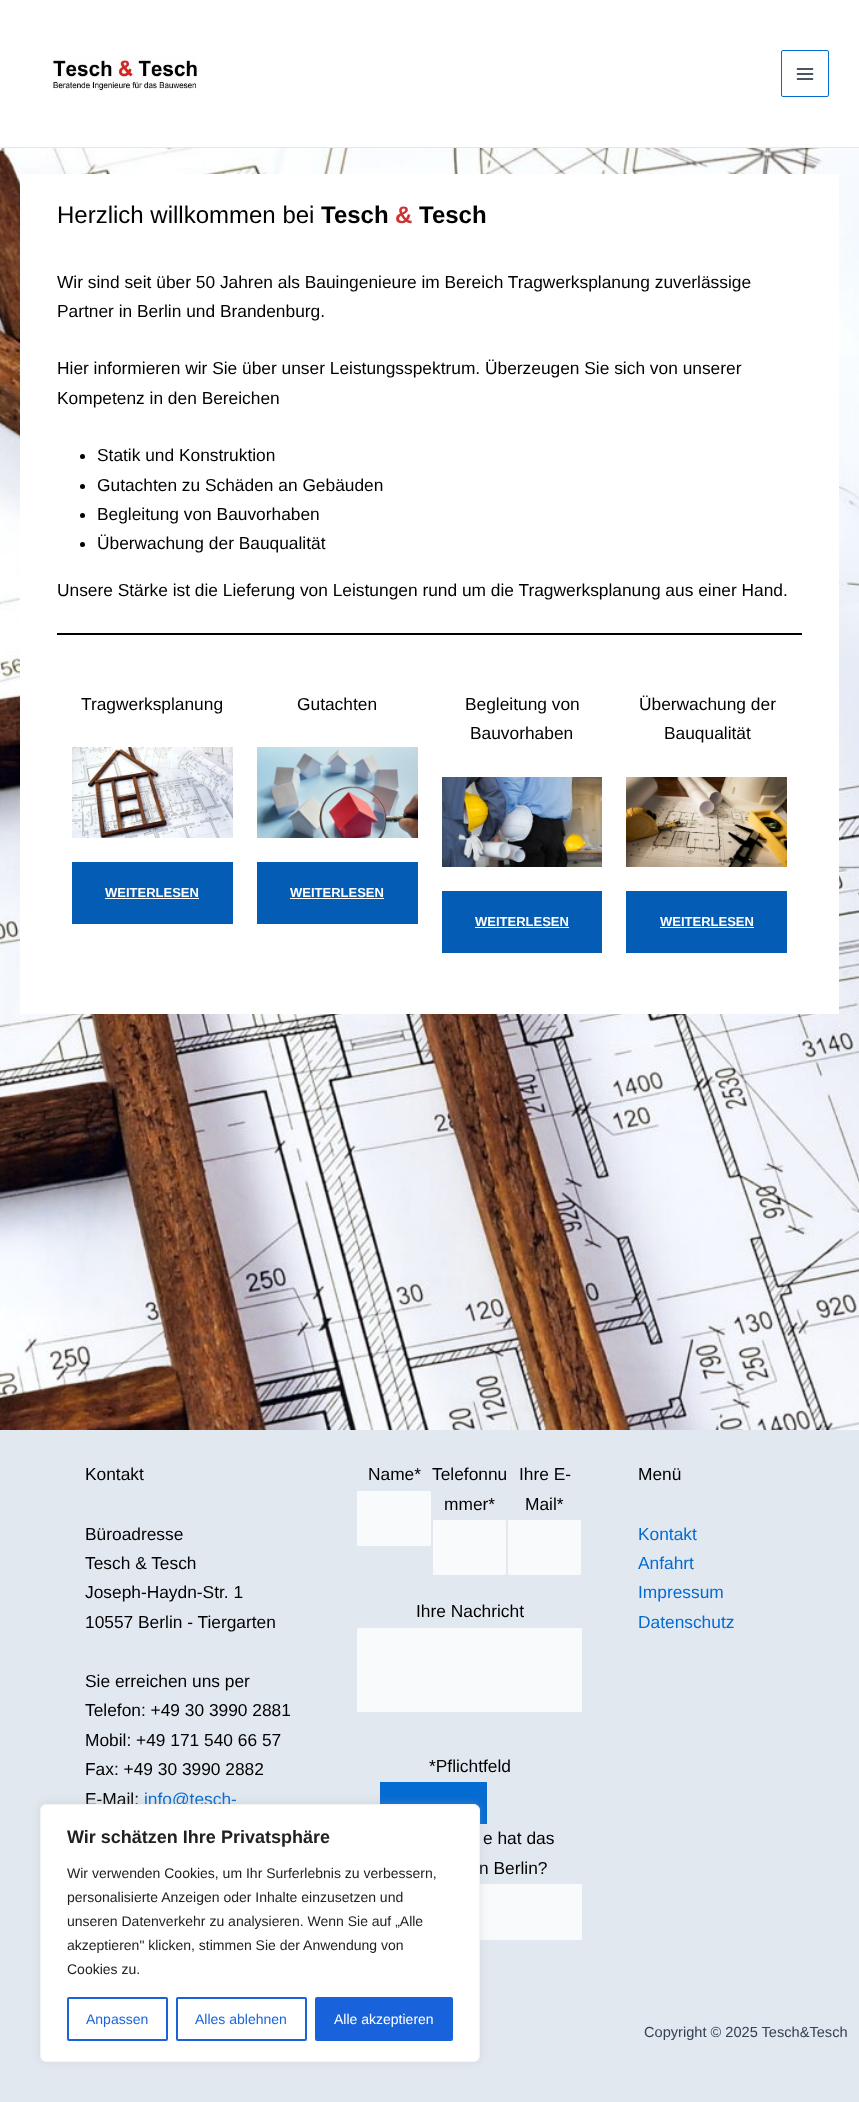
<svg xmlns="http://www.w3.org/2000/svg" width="859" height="2102">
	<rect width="100%" height="100%" fill="#FFFFFF" />
	<image x="0" y="148" width="859" height="1282" href="assets/img1.png" />
	<rect x="0" y="147" width="859" height="1" fill="#E2E8F0" />
	<image x="52" y="56" width="146" height="35" href="assets/img2.png" />
	<rect x="781.5" y="50.5" width="47" height="46" rx="1.5" fill="none" stroke="#046BD2" />
	<image x="796" y="68" width="18" height="12" href="assets/img3.png" />
	<rect x="20" y="174" width="819" height="840" fill="#FFFFFF" />
	<text x="57" y="223" font-family="Liberation Sans" font-size="24" fill="#000000">Herzlich willkommen bei</text>
	<text x="321" y="223" font-family="Liberation Sans" font-size="24" font-weight="700" fill="#000000">Tesch</text>
	<text x="395" y="223" font-family="Liberation Sans" font-size="24" font-weight="700" fill="#CD3333">&amp;</text>
	<text x="419" y="223" font-family="Liberation Sans" font-size="24" font-weight="700" fill="#000000">Tesch</text>
	<g font-family="Liberation Sans" font-size="17.35" fill="#000000">
		<text x="57" y="288">Wir sind seit über 50 Jahren als Bauingenieure im Bereich Tragwerksplanung zuverlässige</text>
		<text x="57" y="317">Partner in Berlin und Brandenburg.</text>
		<text x="57" y="374">Hier informieren wir Sie über unser Leistungsspektrum. Überzeugen Sie sich von unserer</text>
		<text x="57" y="404">Kompetenz in den Bereichen</text>
	</g>
	<circle cx="82.5" cy="456.5" r="2.5" fill="#000000" />
	<text x="97" y="461" font-family="Liberation Sans" font-size="17.35" fill="#000000">Statik und Konstruktion</text>
	<circle cx="82.5" cy="486.5" r="2.5" fill="#000000" />
	<text x="97" y="491" font-family="Liberation Sans" font-size="17.35" fill="#000000">Gutachten zu Schäden an Gebäuden</text>
	<circle cx="82.5" cy="515.5" r="2.5" fill="#000000" />
	<text x="97" y="520" font-family="Liberation Sans" font-size="17.35" fill="#000000">Begleitung von Bauvorhaben</text>
	<circle cx="82.5" cy="544.5" r="2.5" fill="#000000" />
	<g font-family="Liberation Sans" font-size="17.35" fill="#000000">
		<text x="97" y="549">Überwachung der Bauqualität</text>
		<text x="57" y="596">Unsere Stärke ist die Lieferung von Leistungen rund um die Tragwerksplanung aus einer Hand.</text>
	</g>
	<rect x="57" y="633" width="745" height="2" fill="#000000" />
	<text x="81" y="710" font-family="Liberation Sans" font-size="17.35" fill="#000000">Tragwerksplanung</text>
	<image x="72" y="747" width="161" height="91" href="assets/img4.png" />
	<rect x="72" y="862" width="161" height="62" fill="#045CB4" />
	<text x="105" y="897" font-family="Liberation Sans" font-size="13" font-weight="700" fill="#FFFFFF">WEITERLESEN</text>
	<rect x="105" y="898" width="94" height="1" fill="#FFFFFF" />
	<text x="297" y="710" font-family="Liberation Sans" font-size="17.35" fill="#000000">Gutachten</text>
	<image x="257" y="747" width="161" height="91" href="assets/img5.png" />
	<rect x="257" y="862" width="161" height="62" fill="#045CB4" />
	<text x="290" y="897" font-family="Liberation Sans" font-size="13" font-weight="700" fill="#FFFFFF">WEITERLESEN</text>
	<rect x="290" y="898" width="94" height="1" fill="#FFFFFF" />
	<g font-family="Liberation Sans" font-size="17.35" fill="#000000">
		<text x="465" y="710">Begleitung von</text>
		<text x="470" y="739">Bauvorhaben</text>
	</g>
	<image x="442" y="777" width="160" height="90" href="assets/img6.png" />
	<rect x="442" y="891" width="160" height="62" fill="#045CB4" />
	<text x="475" y="926" font-family="Liberation Sans" font-size="13" font-weight="700" fill="#FFFFFF">WEITERLESEN</text>
	<rect x="475" y="927" width="94" height="1" fill="#FFFFFF" />
	<g font-family="Liberation Sans" font-size="17.35" fill="#000000">
		<text x="639" y="710">Überwachung der</text>
		<text x="664" y="739">Bauqualität</text>
	</g>
	<image x="626" y="777" width="161" height="90" href="assets/img7.png" />
	<rect x="626" y="891" width="161" height="62" fill="#045CB4" />
	<text x="660" y="926" font-family="Liberation Sans" font-size="13" font-weight="700" fill="#FFFFFF">WEITERLESEN</text>
	<rect x="660" y="927" width="94" height="1" fill="#FFFFFF" />
	<rect x="0" y="1430" width="859" height="542" fill="#E2E8F0" />
	<g font-family="Liberation Sans" font-size="17.35" fill="#000000">
		<text x="85" y="1480">Kontakt</text>
		<text x="85" y="1540">Büroadresse</text>
		<text x="85" y="1569">Tesch &amp; Tesch</text>
		<text x="85" y="1598">Joseph-Haydn-Str. 1</text>
		<text x="85" y="1628">10557 Berlin - Tiergarten</text>
		<text x="85" y="1687">Sie erreichen uns per</text>
		<text x="85" y="1716">Telefon: +49 30 3990 2881</text>
		<text x="85" y="1746">Mobil: +49 171 540 66 57</text>
		<text x="85" y="1775">Fax: +49 30 3990 2882</text>
		<text x="85" y="1805">E-Mail:</text>
	</g>
	<text x="144" y="1805" font-family="Liberation Sans" font-size="17.35" fill="#046BD2">info@tesch-</text>
	<text x="368" y="1480" font-family="Liberation Sans" font-size="17.35" fill="#000000">Name*</text>
	<rect x="356.5" y="1490.5" width="75" height="56" rx="1.5" fill="#F9FAFB" stroke="#E2E8F0" />
	<g font-family="Liberation Sans" font-size="17.35" fill="#000000">
		<text x="432" y="1480">Telefonnu</text>
		<text x="444" y="1510">mmer*</text>
	</g>
	<rect x="432.5" y="1519.5" width="74" height="56" rx="1.5" fill="#F9FAFB" stroke="#E2E8F0" />
	<g font-family="Liberation Sans" font-size="17.35" fill="#000000">
		<text x="519" y="1480">Ihre E-</text>
		<text x="525" y="1510">Mail*</text>
	</g>
	<rect x="507.5" y="1519.5" width="74" height="56" rx="1.5" fill="#F9FAFB" stroke="#E2E8F0" />
	<text x="416" y="1617" font-family="Liberation Sans" font-size="17.35" fill="#000000">Ihre Nachricht</text>
	<rect x="356.5" y="1627.5" width="226" height="85" rx="1.5" fill="#F9FAFB" stroke="#E2E8F0" />
	<text x="429" y="1772" font-family="Liberation Sans" font-size="17.35" fill="#000000">*Pflichtfeld</text>
	<rect x="380" y="1782" width="107" height="42" fill="#046BD2" />
	<g font-family="Liberation Sans" font-size="17.35" fill="#000000">
		<text x="483" y="1844">e hat das</text>
		<text x="479" y="1874">n Berlin?</text>
	</g>
	<rect x="356.5" y="1883.5" width="226" height="57" rx="1.5" fill="#F9FAFB" stroke="#E2E8F0" />
	<text x="638" y="1480" font-family="Liberation Sans" font-size="17.35" fill="#000000">Menü</text>
	<g font-family="Liberation Sans" font-size="17.35" fill="#046BD2">
		<text x="638" y="1540">Kontakt</text>
		<text x="638" y="1569">Anfahrt</text>
		<text x="638" y="1598">Impressum</text>
		<text x="638" y="1628">Datenschutz</text>
	</g>
	<rect x="0" y="1972" width="859" height="130" fill="#E2E8F0" />
	<text x="644" y="2037" font-family="Liberation Sans" font-size="14.6" fill="#334155">Copyright © 2025 Tesch&amp;Tesch</text>
	<rect x="40" y="1803" width="440" height="258" rx="6" fill="#ACABAB" fill-opacity="0.3" filter="blur(5px)" />
	<rect x="40.5" y="1804.5" width="439" height="257" rx="5.5" fill="#FFFFFF" stroke="#F4F4F4" />
	<text x="67" y="1843" font-family="Liberation Sans" font-size="18" font-weight="700" fill="#212121">Wir schätzen Ihre Privatsphäre</text>
	<g font-family="Liberation Sans" font-size="14" fill="#212121">
		<text x="67" y="1878">Wir verwenden Cookies, um Ihr Surferlebnis zu verbessern,</text>
		<text x="67" y="1902">personalisierte Anzeigen oder Inhalte einzusetzen und</text>
		<text x="67" y="1926">unseren Datenverkehr zu analysieren. Wenn Sie auf „Alle</text>
		<text x="67" y="1950">akzeptieren" klicken, stimmen Sie der Anwendung von</text>
		<text x="67" y="1974">Cookies zu.</text>
	</g>
	<rect x="68" y="1998" width="99" height="42" rx="1" fill="none" stroke="#1863DC" stroke-width="2" />
	<text x="86" y="2024" font-family="Liberation Sans" font-size="14" fill="#1863DC">Anpassen</text>
	<rect x="177" y="1998" width="129" height="42" rx="1" fill="none" stroke="#1863DC" stroke-width="2" />
	<text x="195" y="2024" font-family="Liberation Sans" font-size="14" fill="#1863DC">Alles ablehnen</text>
	<rect x="316" y="1998" width="136" height="42" rx="1" fill="#1863DC" stroke="#1863DC" stroke-width="2" />
	<text x="334" y="2024" font-family="Liberation Sans" font-size="14" fill="#FFFFFF">Alle akzeptieren</text>
</svg>
